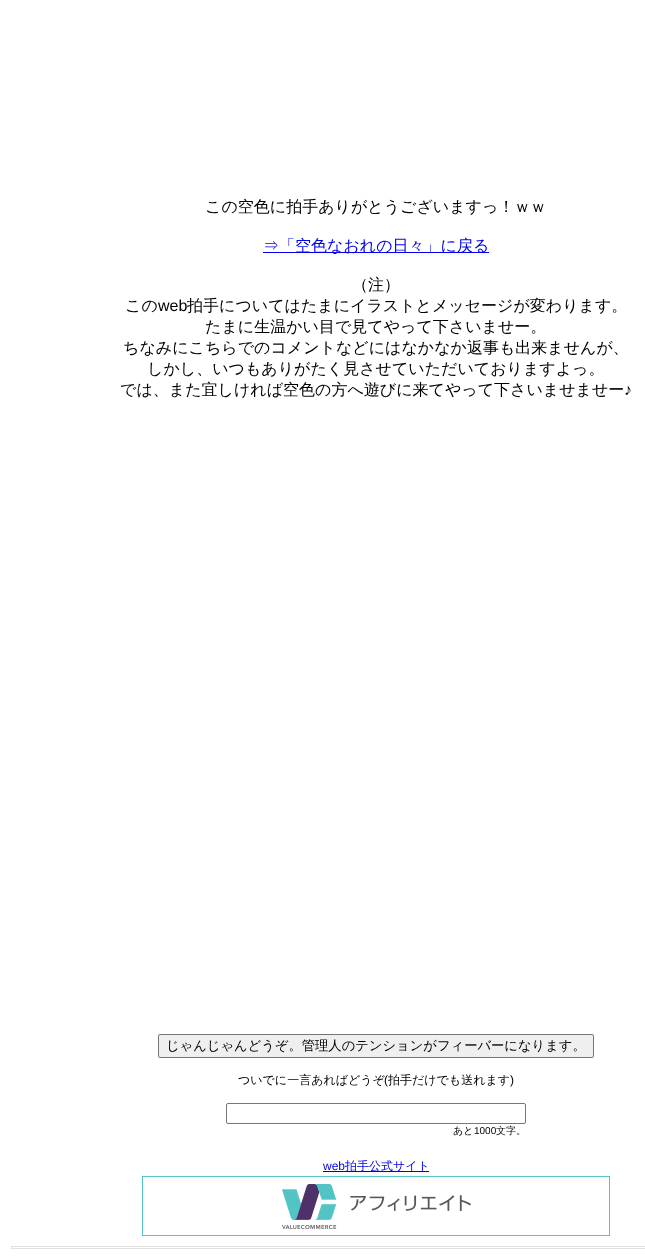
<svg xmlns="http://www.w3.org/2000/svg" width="645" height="1260">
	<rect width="100%" height="100%" fill="#FFFFFF" />
	<text x="205" y="212" font-family="WenQuanYi Zen Hei" font-size="16" font-weight="500" fill="#000000">この空色に拍手ありがとうございますっ！ｗｗ</text>
	<rect x="263" y="252" width="226" height="1" fill="#0000EE" />
	<text x="263" y="251" font-family="WenQuanYi Zen Hei" font-size="16" font-weight="500" fill="#0000EE">⇒「空色なおれの日々」に戻る</text>
	<g font-family="WenQuanYi Zen Hei" font-size="16" font-weight="500" fill="#000000">
		<text x="352" y="290">（注）</text>
		<text x="125" y="311">この</text>
	</g>
	<text x="158" y="311" font-family="Liberation Sans" font-size="16" fill="#000000">web</text>
	<g font-family="WenQuanYi Zen Hei" font-size="16" font-weight="500" fill="#000000">
		<text x="187" y="311">拍手についてはたまにイラストとメッセージが変わります。</text>
		<text x="205" y="332">たまに生温かい目で見てやって下さいませー。</text>
		<text x="123" y="353">ちなみにこちらでのコメントなどにはなかなか返事も出来ませんが、</text>
		<text x="147" y="374">しかし、いつもありがたく見させていただいておりますよっ。</text>
		<text x="120" y="395">では、また宜しければ空色の方へ遊びに来てやって下さいませませー</text>
	</g>
	<text x="624" y="395" font-family="Liberation Sans" font-size="16" fill="#000000">♪</text>
	<rect x="158.5" y="1034.5" width="435" height="23" rx="1.5" fill="#EFEFEF" stroke="#767676" />
	<text x="166" y="1050" font-family="WenQuanYi Zen Hei" font-size="13.3" font-weight="500" fill="#000000">じゃんじゃんどうぞ。管理人のテンションがフィーバーになります。</text>
	<text x="238" y="1084" font-family="WenQuanYi Zen Hei" font-size="12" font-weight="500" fill="#000000">ついでに一言あればどうぞ</text>
	<text x="384" y="1084" font-family="Liberation Sans" font-size="12" fill="#000000">(</text>
	<text x="388" y="1084" font-family="WenQuanYi Zen Hei" font-size="12" font-weight="500" fill="#000000">拍手だけでも送れます</text>
	<text x="510" y="1084" font-family="Liberation Sans" font-size="12" fill="#000000">)</text>
	<rect x="226.5" y="1103.5" width="299" height="20" rx="1.5" fill="none" stroke="#767676" />
	<text x="453" y="1134" font-family="WenQuanYi Zen Hei" font-size="10" font-weight="500" fill="#000000">あと</text>
	<text x="474" y="1134" font-family="Liberation Sans" font-size="10" fill="#000000">1000</text>
	<text x="496" y="1134" font-family="WenQuanYi Zen Hei" font-size="10" font-weight="500" fill="#000000">文字。</text>
	<text x="323" y="1170" font-family="Liberation Sans" font-size="12" fill="#0000EE">web</text>
	<rect x="323" y="1171" width="106" height="1" fill="#0000EE" />
	<text x="345" y="1170" font-family="WenQuanYi Zen Hei" font-size="12" font-weight="500" fill="#0000EE">拍手公式サイト</text>
	<image x="142" y="1176" width="468" height="60" href="assets/img1.png" />
	<rect x="11.5" y="1246.5" width="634" height="2" fill="none" stroke="#E1E1DD" />
</svg>
